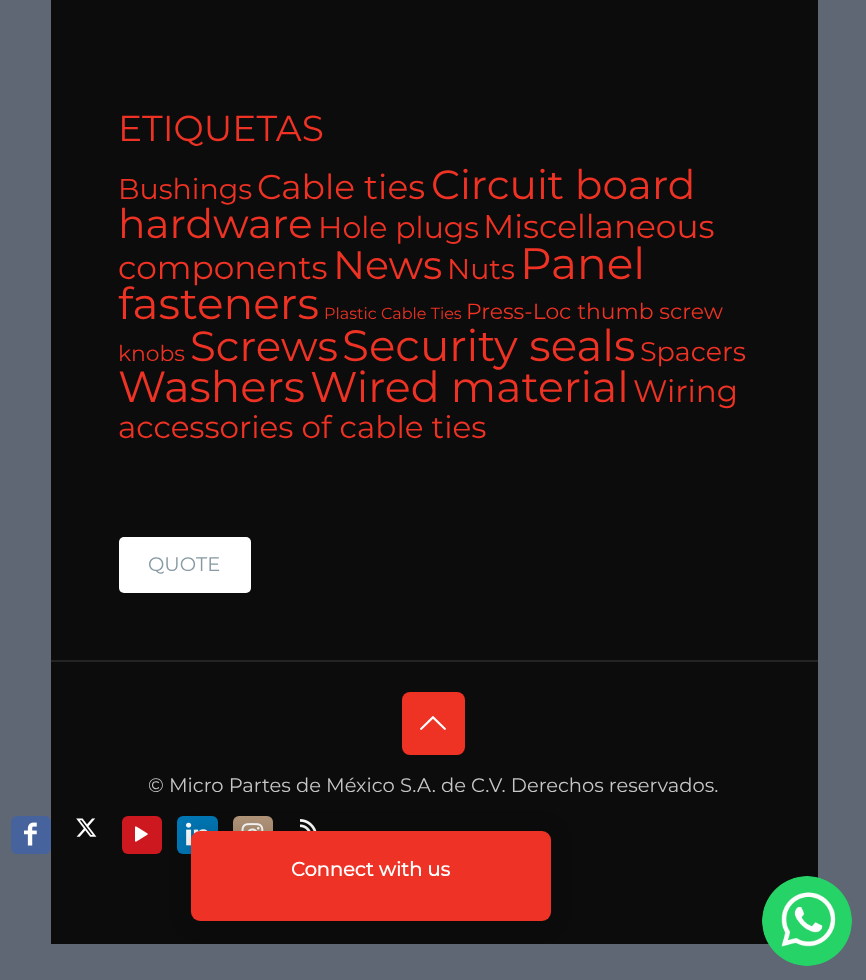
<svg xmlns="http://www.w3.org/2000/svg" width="866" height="980">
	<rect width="100%" height="100%" fill="#5F6774" />
	<rect x="51" y="0" width="767" height="944" fill="#0C0C0C" />
	<text x="118" y="141" font-family="Montserrat" font-size="36" font-weight="100" fill="#EE3224">ETIQUETAS</text>
	<text x="118" y="199" font-family="Montserrat" font-size="28.5" font-weight="100" fill="#EE3224">Bushings</text>
	<text x="257" y="199" font-family="Montserrat" font-size="34.5" font-weight="100" fill="#EE3224">Cable ties</text>
	<g font-family="Montserrat" font-size="40.75" font-weight="100" fill="#EE3224">
		<text x="431" y="199">Circuit board</text>
		<text x="118" y="238">hardware</text>
	</g>
	<text x="318" y="238" font-family="Montserrat" font-size="30" font-weight="100" fill="#EE3224">Hole plugs</text>
	<g font-family="Montserrat" font-size="32.75" font-weight="100" fill="#EE3224">
		<text x="483" y="238">Miscellaneous</text>
		<text x="118" y="279">components</text>
	</g>
	<text x="333" y="279" font-family="Montserrat" font-size="39.5" font-weight="100" fill="#EE3224">News</text>
	<text x="447" y="279" font-family="Montserrat" font-size="28.5" font-weight="100" fill="#EE3224">Nuts</text>
	<g font-family="Montserrat" font-size="44" font-weight="100" fill="#EE3224">
		<text x="520" y="279">Panel</text>
		<text x="118" y="319">fasteners</text>
	</g>
	<text x="324" y="319" font-family="Montserrat" font-size="16" font-weight="100" fill="#EE3224">Plastic Cable Ties</text>
	<g font-family="Montserrat" font-size="21.9" font-weight="100" fill="#EE3224">
		<text x="466" y="319">Press-Loc thumb screw</text>
		<text x="118" y="361">knobs</text>
	</g>
	<text x="190" y="361" font-family="Montserrat" font-size="42" font-weight="100" fill="#EE3224">Screws</text>
	<text x="342" y="361" font-family="Montserrat" font-size="43.75" font-weight="100" fill="#EE3224">Security seals</text>
	<text x="640" y="361" font-family="Montserrat" font-size="27" font-weight="100" fill="#EE3224">Spacers</text>
	<text x="118" y="402" font-family="Montserrat" font-size="43.5" font-weight="100" fill="#EE3224">Washers</text>
	<text x="310" y="402" font-family="Montserrat" font-size="42.75" font-weight="100" fill="#EE3224">Wired material</text>
	<g font-family="Montserrat" font-size="31" font-weight="100" fill="#EE3224">
		<text x="633" y="402">Wiring</text>
		<text x="118" y="438">accessories of cable ties</text>
	</g>
	<rect x="119" y="537" width="132" height="56" rx="5" fill="#FFFFFF" />
	<text x="148" y="571" font-family="Montserrat" font-size="19.5" font-weight="100" fill="#8799A3">QUOTE</text>
	<rect x="122" y="816" width="40" height="38" rx="6" fill="#CC181E" />
	<rect x="177" y="816" width="41" height="38" rx="6" fill="#0077B5" />
	<image x="186" y="822" width="22" height="24" href="assets/img5.png" />
	<rect x="233" y="816" width="40" height="38" rx="6" fill="#B29579" />
	<image x="241" y="823" width="23" height="8" href="assets/img6.png" />
	<image x="300" y="819" width="17" height="12" href="assets/img7.png" />
	<rect x="183" y="824" width="375" height="105" rx="17" fill="#000000" fill-opacity="0.1" filter="blur(7.5px)" />
	<rect x="191" y="831" width="360" height="90" rx="9" fill="#EE3225" />
	<text x="291" y="876" font-family="Montserrat" font-size="19.5" font-weight="700" fill="#FFFFFF">Connect with us</text>
	<rect x="51" y="660" width="767" height="2" fill="#242424" />
	<rect x="402" y="692" width="63" height="63" rx="8" fill="#EE3224" />
	<image x="420" y="716" width="26" height="14" href="assets/img1.png" />
	<text x="148" y="792" font-family="Montserrat" font-size="19.5" font-weight="100" fill="#C7C7C7">© Micro Partes de México S.A. de C.V. Derechos reservados.</text>
	<rect x="11" y="816" width="40" height="38" rx="6" fill="#47639E" />
	<image x="24" y="822" width="13" height="24" href="assets/img2.png" />
	<image x="76" y="818" width="21" height="19" href="assets/img3.png" />
	<image x="135" y="826" width="13" height="16" href="assets/img4.png" />
	<image x="762" y="876" width="90" height="90" href="assets/img8.png" />
</svg>
